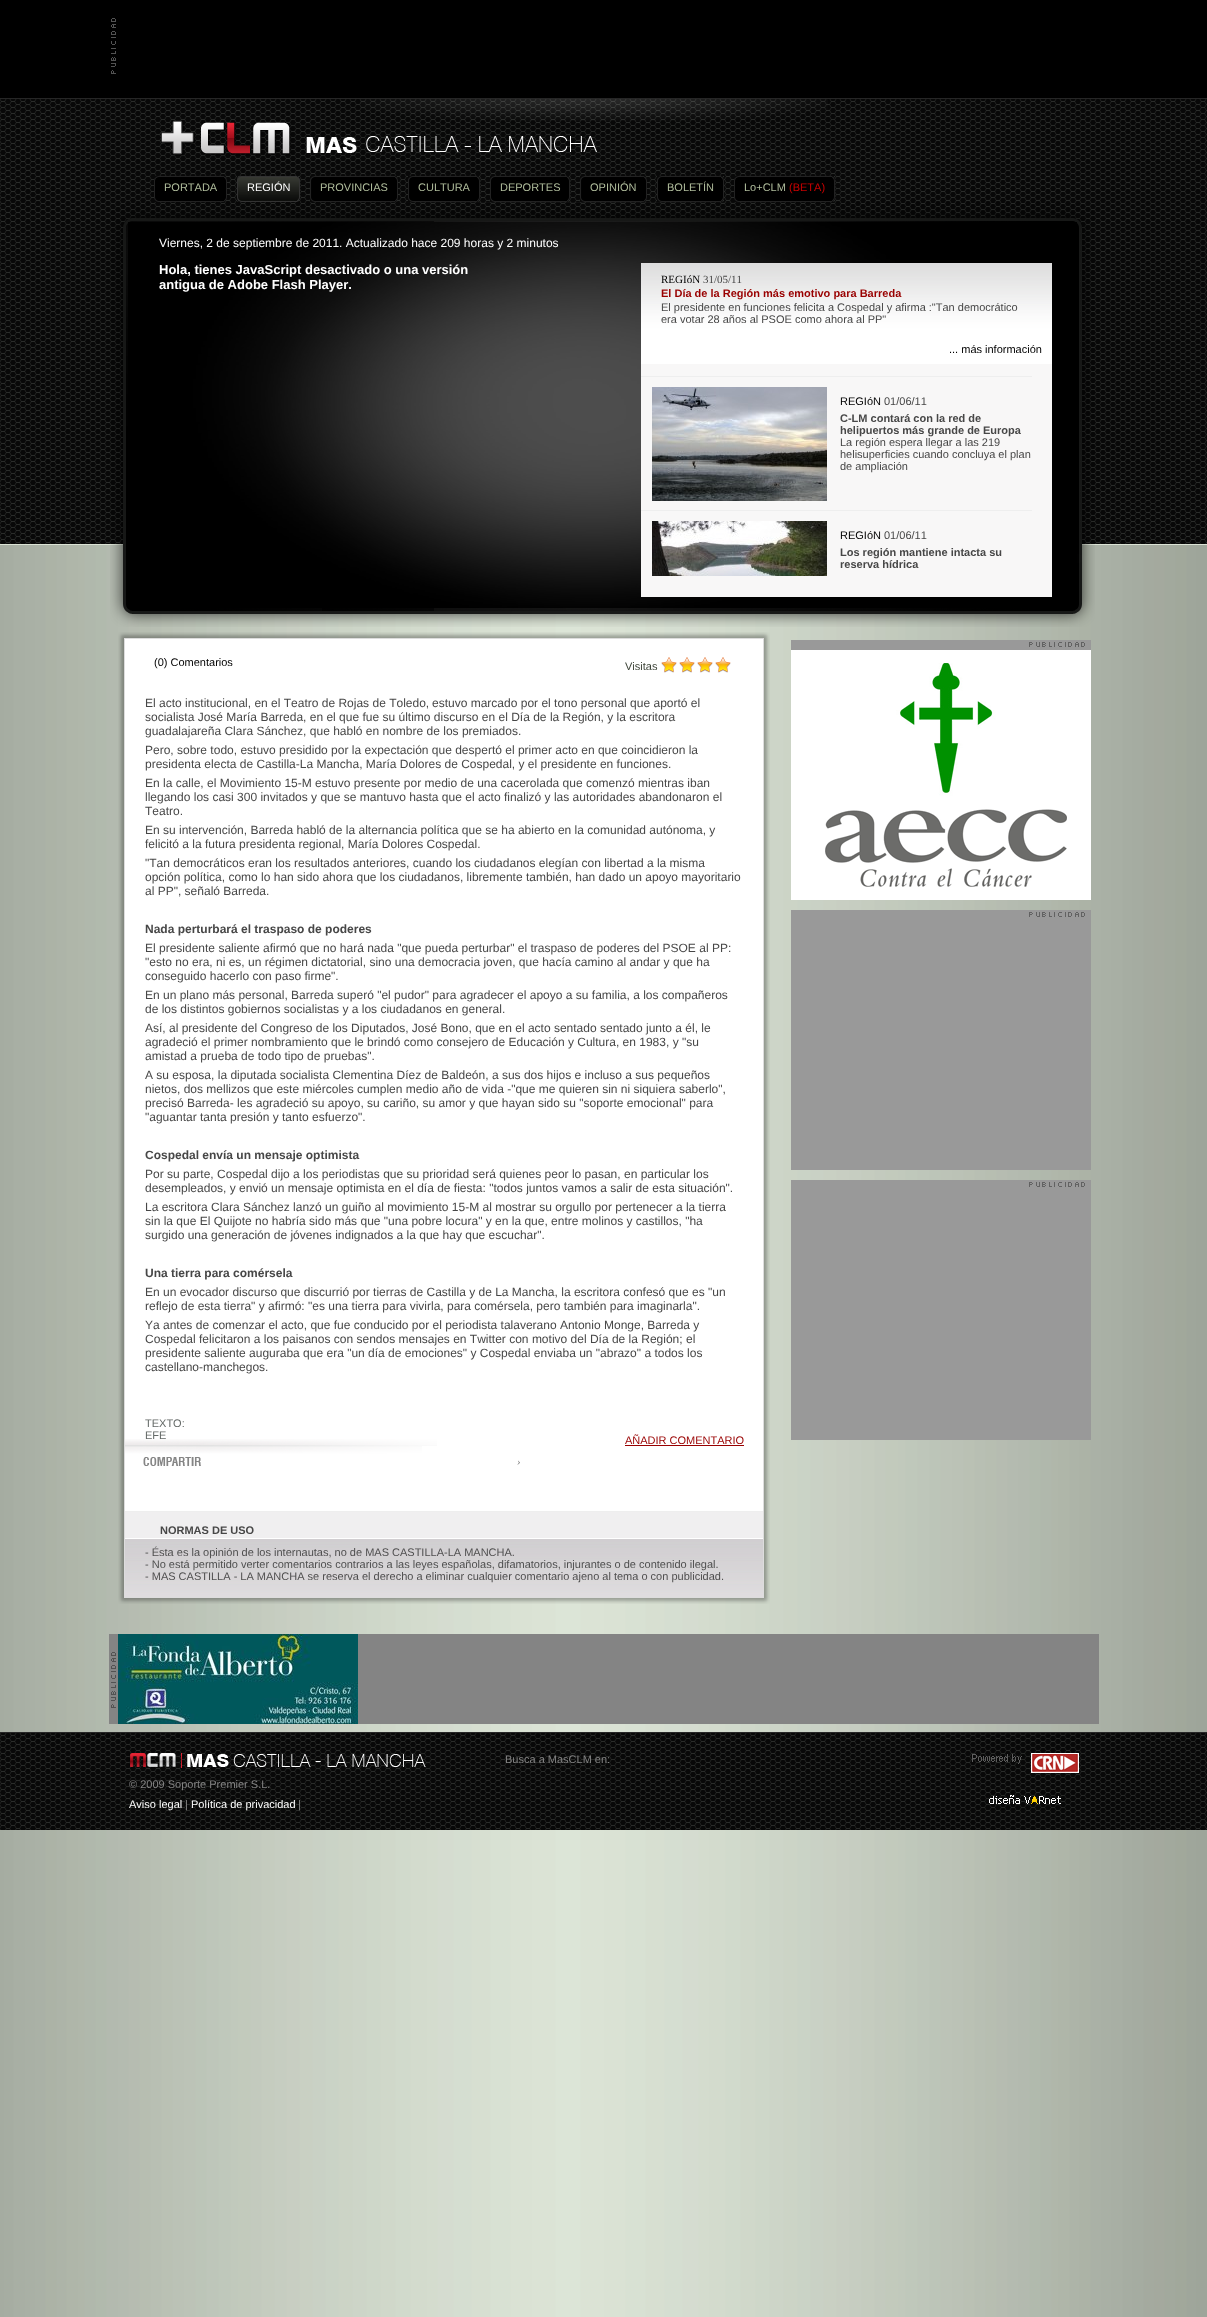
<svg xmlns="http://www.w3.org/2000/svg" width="1207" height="2317">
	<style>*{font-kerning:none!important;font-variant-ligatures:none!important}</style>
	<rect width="100%" height="100%" fill="#FFFFFF" />
	<image x="0" y="545" width="1207" height="1772" href="assets/img1.png" />
	<rect x="0" y="0" width="1207" height="98" fill="#000000" />
	<image x="111" y="18" width="5" height="56" href="assets/img2.png" />
	<image x="0" y="99" width="1207" height="445" href="assets/img3.png" />
	<rect x="0" y="98" width="1207" height="1" fill="#262626" />
	<rect x="0" y="544" width="1207" height="1" fill="#DBE3D5" />
	<image x="360" y="99" width="468" height="22" href="assets/img4.png" />
	<image x="161" y="120" width="436" height="36" href="assets/img5.png" />
	<image x="224" y="176" width="3" height="26" href="assets/img6.png" />
	<image x="154" y="176" width="70" height="26" href="assets/img7.png" />
	<text x="164" y="191" font-family="Liberation Sans" font-size="11" fill="#B0BD9C">PORTADA</text>
	<image x="297" y="176" width="3" height="26" href="assets/img8.png" />
	<image x="237" y="176" width="60" height="26" href="assets/img9.png" />
	<text x="247" y="191" font-family="Liberation Sans" font-size="11" fill="#FFFFFF">REGIÓN</text>
	<image x="395" y="176" width="3" height="26" href="assets/img6.png" />
	<image x="310" y="176" width="85" height="26" href="assets/img10.png" />
	<text x="320" y="191" font-family="Liberation Sans" font-size="11" fill="#B0BD9C">PROVINCIAS</text>
	<image x="477" y="176" width="3" height="26" href="assets/img6.png" />
	<image x="408" y="176" width="69" height="26" href="assets/img11.png" />
	<text x="418" y="191" font-family="Liberation Sans" font-size="11" fill="#B0BD9C">CULTURA</text>
	<image x="567" y="176" width="3" height="26" href="assets/img6.png" />
	<image x="490" y="176" width="77" height="26" href="assets/img12.png" />
	<text x="500" y="191" font-family="Liberation Sans" font-size="11" fill="#B0BD9C">DEPORTES</text>
	<image x="644" y="176" width="3" height="26" href="assets/img6.png" />
	<image x="580" y="176" width="64" height="26" href="assets/img13.png" />
	<text x="590" y="191" font-family="Liberation Sans" font-size="11" fill="#B0BD9C">OPINIÓN</text>
	<image x="721" y="176" width="3" height="26" href="assets/img6.png" />
	<image x="657" y="176" width="64" height="26" href="assets/img14.png" />
	<text x="667" y="191" font-family="Liberation Sans" font-size="11" fill="#B0BD9C">BOLETÍN</text>
	<image x="832" y="176" width="3" height="26" href="assets/img6.png" />
	<image x="734" y="176" width="98" height="26" href="assets/img15.png" />
	<text x="744" y="191" font-family="Liberation Sans" font-size="11" fill="#B0BD9C">Lo+CLM</text>
	<text x="789" y="191" font-family="Liberation Sans" font-size="11" fill="#CA0000">(BETA)</text>
	<image x="110" y="202" width="985" height="425" href="assets/img16.png" />
	<text x="159" y="247" font-family="Liberation Sans" font-size="12" fill="#FFFFFF">Viernes, 2 de septiembre de 2011. Actualizado hace 209 horas y 2 minutos</text>
	<g font-family="Liberation Sans" font-size="13" font-weight="700" fill="#FFFFFF">
		<text x="159" y="274">Hola, tienes JavaScript desactivado o una versión</text>
		<text x="159" y="289">antigua de Adobe Flash Player.</text>
	</g>
	<rect x="641" y="364" width="411" height="233" fill="#F8F7F7" />
	<image x="641" y="263" width="411" height="101" href="assets/img17.png" />
	<text x="661" y="283" font-family="Liberation Serif" font-size="11" fill="#000000">REGIóN</text>
	<text x="703" y="283" font-family="Liberation Serif" font-size="11" fill="#474747">31/05/11</text>
	<text x="661" y="297" font-family="Liberation Sans" font-size="11" font-weight="700" fill="#990000">El Día de la Región más emotivo para Barreda</text>
	<g font-family="Liberation Sans" font-size="11" fill="#474747">
		<text x="661" y="311">El presidente en funciones felicita a Cospedal y afirma :"Tan democrático</text>
		<text x="661" y="323">era votar 28 años al PSOE como ahora al PP"</text>
	</g>
	<text x="949" y="353" font-family="Liberation Sans" font-size="11" fill="#000000">... más información</text>
	<rect x="641" y="376" width="391" height="1" fill="#EEEEEE" />
	<image x="652" y="387" width="175" height="114" href="assets/img18.png" />
	<text x="840" y="405" font-family="Liberation Sans" font-size="11" fill="#000000">REGIóN</text>
	<text x="884" y="405" font-family="Liberation Sans" font-size="11" fill="#474747">01/06/11</text>
	<g font-family="Liberation Sans" font-size="11" font-weight="700" fill="#474747">
		<text x="840" y="422">C-LM contará con la red de</text>
		<text x="840" y="434">helipuertos más grande de Europa</text>
	</g>
	<g font-family="Liberation Sans" font-size="11" fill="#474747">
		<text x="840" y="446">La región espera llegar a las 219</text>
		<text x="840" y="458">helisuperficies cuando concluya el plan</text>
		<text x="840" y="470">de ampliación</text>
	</g>
	<rect x="641" y="510" width="391" height="1" fill="#EEEEEE" />
	<image x="652" y="521" width="175" height="55" href="assets/img19.png" />
	<text x="840" y="539" font-family="Liberation Sans" font-size="11" fill="#000000">REGIóN</text>
	<text x="884" y="539" font-family="Liberation Sans" font-size="11" fill="#474747">01/06/11</text>
	<g font-family="Liberation Sans" font-size="11" font-weight="700" fill="#474747">
		<text x="840" y="556">Los región mantiene intacta su</text>
		<text x="840" y="568">reserva hídrica</text>
	</g>
	<image x="118" y="632" width="652" height="7" href="assets/img20.png" />
	<image x="118" y="639" width="652" height="958" href="assets/img21.png" />
	<image x="125" y="1439" width="312" height="7" href="assets/img22.png" />
	<text x="154" y="666" font-family="Liberation Sans" font-size="11" fill="#000000">(0) Comentarios</text>
	<text x="625" y="670" font-family="Liberation Sans" font-size="11" fill="#3D4438">Visitas</text>
	<image x="661" y="657" width="16" height="16" href="assets/img23.png" />
	<image x="679" y="657" width="16" height="16" href="assets/img23.png" />
	<image x="697" y="657" width="16" height="16" href="assets/img23.png" />
	<image x="715" y="657" width="16" height="16" href="assets/img23.png" />
	<g font-family="Liberation Sans" font-size="12" fill="#474747">
		<text x="145" y="707">El acto institucional, en el Teatro de Rojas de Toledo,</text>
		<text x="432" y="707">estuvo marcado por el tono personal que aportó el</text>
		<text x="145" y="721">socialista José María Barreda, en el que fue su último discurso en el Día de la Región, y la escritora</text>
		<text x="145" y="735">guadalajareña Clara Sánchez, que habló en nombre de los premiados.</text>
		<text x="145" y="754">Pero, sobre todo, estuvo presidido por la expectación que despertó el primer acto en que coincidieron la</text>
		<text x="145" y="768">presidenta electa de Castilla-La Mancha, María Dolores de Cospedal, y el presidente en funciones.</text>
		<text x="145" y="787">En la calle, el Movimiento 15-M estuvo presente por medio de una cacerolada que comenzó mientras iban</text>
		<text x="145" y="801">llegando los casi 300 invitados y que se mantuvo hasta que el acto finalizó y las autoridades abandonaron el</text>
		<text x="145" y="815">Teatro.</text>
		<text x="145" y="834">En su intervención, Barreda habló de la alternancia política que se ha abierto en la comunidad autónoma, y</text>
		<text x="145" y="848">felicitó a la futura presidenta regional, María Dolores Cospedal.</text>
		<text x="145" y="867">"Tan democráticos eran los resultados anteriores, cuando los ciudadanos elegían con libertad a la misma</text>
		<text x="145" y="881">opción política, como lo han sido ahora que los ciudadanos, libremente también, han dado un apoyo mayoritario</text>
		<text x="145" y="895">al PP", señaló Barreda.</text>
	</g>
	<text x="145" y="933" font-family="Liberation Sans" font-size="12" font-weight="700" fill="#474747">Nada perturbará el traspaso de poderes</text>
	<g font-family="Liberation Sans" font-size="12" fill="#474747">
		<text x="145" y="952">El presidente saliente afirmó que no hará nada "que pueda perturbar" el traspaso de poderes del PSOE al PP:</text>
		<text x="145" y="966">"esto no era, ni es, un régimen dictatorial, sino una democracia joven, que hacía camino al andar y que ha</text>
		<text x="145" y="980">conseguido hacerlo con paso firme".</text>
		<text x="145" y="999">En un plano más personal, Barreda superó "el pudor" para agradecer el apoyo a su familia, a los compañeros</text>
		<text x="145" y="1013">de los distintos gobiernos socialistas y a los ciudadanos en general.</text>
		<text x="145" y="1032">Así, al presidente del Congreso de los Diputados, José Bono, que en el acto sentado sentado junto a él, le</text>
		<text x="145" y="1046">agradeció el primer nombramiento que le brindó como consejero de Educación y Cultura, en 1983, y "su</text>
		<text x="145" y="1060">amistad a prueba de todo tipo de pruebas".</text>
		<text x="145" y="1079">A su esposa, la diputada socialista Clementina Díez de Baldeón, a sus dos hijos e incluso a sus pequeños</text>
		<text x="145" y="1093">nietos, dos mellizos que este miércoles cumplen medio año de vida -"que me quieren sin ni siquiera saberlo",</text>
		<text x="145" y="1107">precisó Barreda- les agradeció su apoyo, su cariño, su amor y que hayan sido su "soporte emocional" para</text>
		<text x="145" y="1121">"aguantar tanta presión y tanto esfuerzo".</text>
	</g>
	<text x="145" y="1159" font-family="Liberation Sans" font-size="12" font-weight="700" fill="#474747">Cospedal envía un mensaje optimista</text>
	<g font-family="Liberation Sans" font-size="12" fill="#474747">
		<text x="145" y="1178">Por su parte, Cospedal dijo a los periodistas que su prioridad será quienes peor lo pasan, en particular los</text>
		<text x="145" y="1192">desempleados, y envió un mensaje optimista en el día de fiesta: "todos juntos vamos a salir de esta situación".</text>
		<text x="145" y="1211">La escritora Clara Sánchez lanzó un guiño al movimiento 15-M al mostrar su orgullo por pertenecer a la tierra</text>
		<text x="145" y="1225">sin la que El Quijote no habría sido más que "una pobre locura" y en la que, entre molinos y castillos, "ha</text>
		<text x="145" y="1239">surgido una generación de jóvenes indignados a la que hay que escuchar".</text>
	</g>
	<text x="145" y="1277" font-family="Liberation Sans" font-size="12" font-weight="700" fill="#474747">Una tierra para comérsela</text>
	<g font-family="Liberation Sans" font-size="12" fill="#474747">
		<text x="145" y="1296">En un evocador discurso que discurrió por tierras de Castilla y de La Mancha, la escritora confesó que es "un</text>
		<text x="145" y="1310">reflejo de esta tierra" y afirmó: "es una tierra para vivirla, para comérsela, pero también para imaginarla".</text>
		<text x="145" y="1329">Ya antes de comenzar el acto, que fue conducido por el periodista talaverano Antonio Monge, Barreda y</text>
		<text x="145" y="1343">Cospedal felicitaron a los paisanos con sendos mensajes en Twitter con motivo del Día de la Región; el</text>
		<text x="145" y="1357">presidente saliente auguraba que era "un día de emociones" y Cospedal enviaba un "abrazo" a todos los</text>
		<text x="145" y="1371">castellano-manchegos. </text>
	</g>
	<g font-family="Liberation Sans" font-size="11" fill="#646967">
		<text x="145" y="1427">TEXTO:</text>
		<text x="145" y="1439">EFE</text>
	</g>
	<text x="625" y="1444" font-family="Liberation Sans" font-size="11" fill="#990000">AÑADIR COMENTARIO</text>
	<rect x="625" y="1445" width="119" height="1" fill="#990000" />
	<image x="125" y="1446" width="297" height="20" href="assets/img24.png" />
	<text x="517" y="1465" font-family="Liberation Serif" font-size="10" font-style="italic" fill="#6A6969">›</text>
	<rect x="125" y="1512" width="638" height="26" fill="#F0EFF0" />
	<image x="125" y="1538" width="638" height="59" href="assets/img25.png" />
	<rect x="125" y="1511" width="638" height="1" fill="#EEEEEE" />
	<text x="160" y="1534" font-family="Liberation Sans" font-size="11" font-weight="700" fill="#474747">NORMAS DE USO</text>
	<g font-family="Liberation Sans" font-size="11" fill="#4F4F4F">
		<text x="145" y="1556">- Ésta es la opinión de los internautas, no de MAS CASTILLA-LA MANCHA.</text>
		<text x="145" y="1568">- No está permitido verter comentarios contrarios a las leyes españolas, difamatorios, injurantes o de contenido ilegal.</text>
		<text x="145" y="1580">- MAS CASTILLA - LA MANCHA se reserva el derecho a eliminar cualquier comentario ajeno al tema o con publicidad.</text>
	</g>
	<rect x="791" y="640" width="300" height="10" fill="#999999" />
	<image x="1029" y="642" width="56" height="5" href="assets/img26.png" />
	<image x="791" y="650" width="300" height="250" href="assets/img27.png" />
	<rect x="791" y="910" width="300" height="260" fill="#999999" />
	<image x="1029" y="912" width="56" height="5" href="assets/img26.png" />
	<rect x="791" y="1180" width="300" height="260" fill="#999999" />
	<image x="1029" y="1182" width="56" height="5" href="assets/img26.png" />
	<image x="118" y="1597" width="652" height="7" href="assets/img28.png" />
	<rect x="109" y="1634" width="990" height="90" fill="#848484" />
	<image x="111" y="1652" width="5" height="56" href="assets/img29.png" />
	<image x="118" y="1634" width="240" height="90" href="assets/img30.png" />
	<image x="0" y="1733" width="1207" height="97" href="assets/img31.png" />
	<rect x="0" y="1732" width="1207" height="1" fill="#262626" />
	<image x="129" y="1753" width="297" height="15" href="assets/img32.png" />
	<text x="505" y="1763" font-family="Liberation Sans" font-size="11" fill="#848484">Busca a MasCLM en:</text>
	<image x="972" y="1753" width="107" height="20" href="assets/img33.png" />
	<text x="129" y="1788" font-family="Liberation Sans" font-size="11" fill="#848484">© 2009 Soporte Premier S.L.</text>
	<text x="129" y="1808" font-family="Liberation Sans" font-size="11" fill="#FFFFFF">Aviso legal</text>
	<text x="185" y="1808" font-family="Liberation Sans" font-size="11" fill="#848484">|</text>
	<text x="191" y="1808" font-family="Liberation Sans" font-size="11" fill="#FFFFFF">Política de privacidad</text>
	<text x="298" y="1808" font-family="Liberation Sans" font-size="11" fill="#848484">|</text>
	<image x="989" y="1795" width="72" height="9" href="assets/img34.png" />
</svg>
